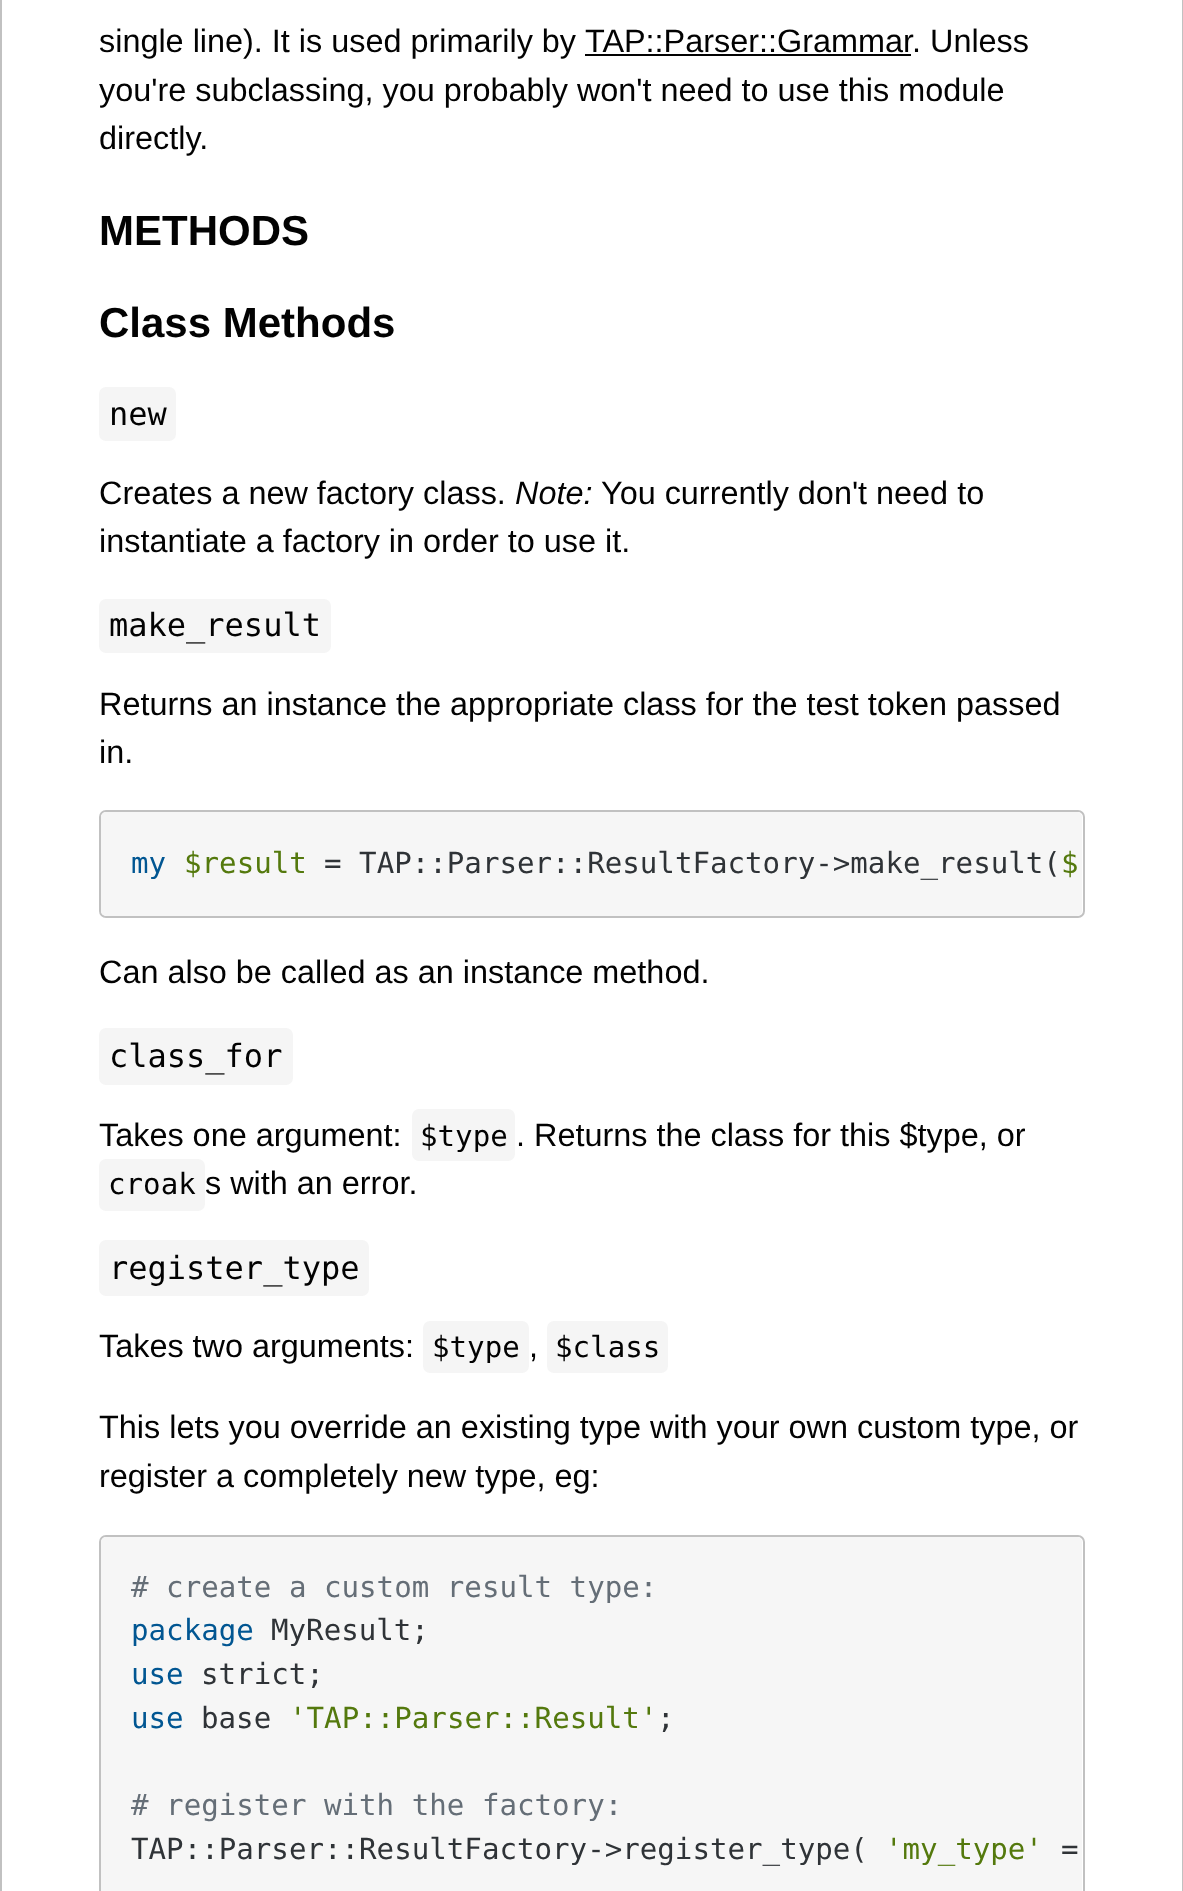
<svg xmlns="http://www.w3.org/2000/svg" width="1183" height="1891">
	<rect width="100%" height="100%" fill="#FFFFFF" />
	<rect x="1" y="-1" width="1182" height="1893" fill="none" stroke="#C1C1C1" stroke-width="2" />
	<g font-family="Liberation Sans" font-size="32.4" fill="#020202">
		<text x="99" y="52">single line). It is used primarily by</text>
		<text x="585" y="52">TAP::Parser::Grammar</text>
	</g>
	<rect x="585" y="54" width="326" height="2" fill="#020202" />
	<g font-family="Liberation Sans" font-size="32.4" fill="#020202">
		<text x="912" y="52">. Unless</text>
		<text x="99" y="101">you're subclassing, you probably won't need to use this module</text>
		<text x="99" y="149">directly.</text>
	</g>
	<g font-family="Liberation Sans" font-size="42" font-weight="700" fill="#020202">
		<text x="99" y="245">METHODS</text>
		<text x="99" y="337">Class Methods</text>
	</g>
	<rect x="99" y="387" width="77" height="54" rx="7" fill="#F5F5F5" />
	<text x="109" y="425" font-family="DejaVu Sans Mono" font-size="32" fill="#020202">new</text>
	<text x="99" y="504" font-family="Liberation Sans" font-size="32.4" fill="#020202">Creates a new factory class.</text>
	<text x="515" y="504" font-family="Liberation Sans" font-size="32.4" font-style="italic" fill="#020202">Note:</text>
	<g font-family="Liberation Sans" font-size="32.4" fill="#020202">
		<text x="601" y="504">You currently don't need to</text>
		<text x="99" y="552">instantiate a factory in order to use it.</text>
	</g>
	<rect x="99" y="599" width="232" height="54" rx="7" fill="#F5F5F5" />
	<text x="109" y="636" font-family="DejaVu Sans Mono" font-size="32" fill="#020202">make_result</text>
	<g font-family="Liberation Sans" font-size="32.4" fill="#020202">
		<text x="99" y="715">Returns an instance the appropriate class for the test token passed</text>
		<text x="99" y="763">in.</text>
	</g>
	<rect x="100" y="811" width="984" height="106" rx="6" fill="none" stroke="#C1C1C1" stroke-width="2" />
	<rect x="101" y="812" width="981" height="104" rx="5" fill="#F6F6F6" />
	<text x="131" y="873" font-family="DejaVu Sans Mono" font-size="29.15" fill="#015692">my</text>
	<text x="184" y="873" font-family="DejaVu Sans Mono" font-size="29.15" fill="#54790D">$result</text>
	<text x="324" y="873" font-family="DejaVu Sans Mono" font-size="29.15" fill="#2F3337">= TAP::Parser::ResultFactory-&gt;make_result(</text>
	<text x="1061" y="873" font-family="DejaVu Sans Mono" font-size="29.15" fill="#54790D">$</text>
	<text x="99" y="983" font-family="Liberation Sans" font-size="32.4" fill="#020202">Can also be called as an instance method.</text>
	<rect x="99" y="1028" width="194" height="57" rx="7" fill="#F5F5F5" />
	<text x="109" y="1067" font-family="DejaVu Sans Mono" font-size="32" fill="#020202">class_for</text>
	<text x="99" y="1146" font-family="Liberation Sans" font-size="32.4" fill="#020202">Takes one argument:</text>
	<rect x="412" y="1109" width="103" height="52" rx="7" fill="#F5F5F5" />
	<text x="420" y="1146" font-family="DejaVu Sans Mono" font-size="29.15" fill="#020202">$type</text>
	<text x="516" y="1146" font-family="Liberation Sans" font-size="32.4" fill="#020202">. Returns the class for this $type, or</text>
	<rect x="99" y="1159" width="106" height="52" rx="7" fill="#F5F5F5" />
	<text x="108" y="1194" font-family="DejaVu Sans Mono" font-size="29.15" fill="#020202">croak</text>
	<text x="205" y="1194" font-family="Liberation Sans" font-size="32.4" fill="#020202">s with an error.</text>
	<rect x="99" y="1240" width="270" height="56" rx="7" fill="#F5F5F5" />
	<text x="109" y="1279" font-family="DejaVu Sans Mono" font-size="32" fill="#020202">register_type</text>
	<text x="99" y="1357" font-family="Liberation Sans" font-size="32.4" fill="#020202">Takes two arguments:</text>
	<rect x="423" y="1321" width="106" height="52" rx="7" fill="#F5F5F5" />
	<text x="432" y="1357" font-family="DejaVu Sans Mono" font-size="29.15" fill="#020202">$type</text>
	<text x="529" y="1357" font-family="Liberation Sans" font-size="32.4" fill="#020202">,</text>
	<rect x="547" y="1321" width="121" height="52" rx="7" fill="#F5F5F5" />
	<text x="555" y="1357" font-family="DejaVu Sans Mono" font-size="29.15" fill="#020202">$class</text>
	<g font-family="Liberation Sans" font-size="32.4" fill="#020202">
		<text x="99" y="1438">This lets you override an existing type with your own custom type, or</text>
		<text x="99" y="1487">register a completely new type, eg:</text>
	</g>
	<rect x="100" y="1536" width="984" height="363" rx="6" fill="none" stroke="#C1C1C1" stroke-width="2" />
	<rect x="101" y="1537" width="981" height="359" rx="5" fill="#F6F6F6" />
	<text x="131" y="1597" font-family="DejaVu Sans Mono" font-size="29.15" fill="#656E77"># create a custom result type:</text>
	<text x="131" y="1640" font-family="DejaVu Sans Mono" font-size="29.15" fill="#015692">package</text>
	<text x="271" y="1640" font-family="DejaVu Sans Mono" font-size="29.15" fill="#2F3337">MyResult;</text>
	<text x="131" y="1684" font-family="DejaVu Sans Mono" font-size="29.15" fill="#015692">use</text>
	<text x="201" y="1684" font-family="DejaVu Sans Mono" font-size="29.15" fill="#2F3337">strict;</text>
	<text x="131" y="1728" font-family="DejaVu Sans Mono" font-size="29.15" fill="#015692">use</text>
	<text x="201" y="1728" font-family="DejaVu Sans Mono" font-size="29.15" fill="#2F3337">base</text>
	<text x="289" y="1728" font-family="DejaVu Sans Mono" font-size="29.15" fill="#54790D">'TAP::Parser::Result'</text>
	<text x="657" y="1728" font-family="DejaVu Sans Mono" font-size="29.15" fill="#2F3337">;</text>
	<text x="131" y="1815" font-family="DejaVu Sans Mono" font-size="29.15" fill="#656E77"># register with the factory:</text>
	<text x="131" y="1859" font-family="DejaVu Sans Mono" font-size="29.15" fill="#2F3337">TAP::Parser::ResultFactory-&gt;register_type(</text>
	<text x="885" y="1859" font-family="DejaVu Sans Mono" font-size="29.15" fill="#54790D">'my_type'</text>
	<text x="1061" y="1859" font-family="DejaVu Sans Mono" font-size="29.15" fill="#2F3337">=</text>
</svg>
